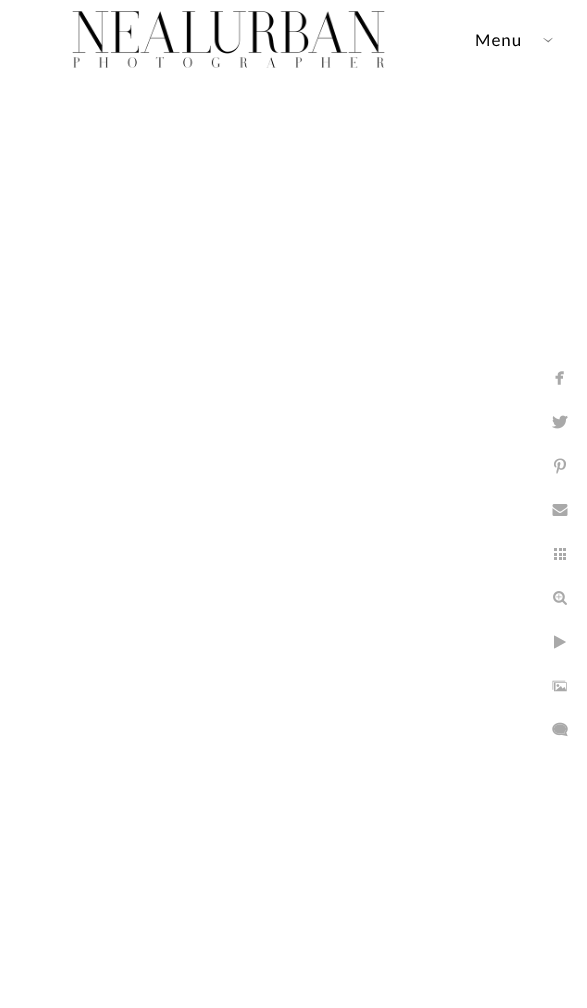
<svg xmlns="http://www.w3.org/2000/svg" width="587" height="1008">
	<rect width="100%" height="100%" fill="#FFFFFF" />
	<image x="72" y="11" width="313" height="57" href="assets/img1.png" />
	<text x="475" y="46" font-family="Carlito" font-size="18" letter-spacing="1" fill="#000000">Menu</text>
	<image x="543" y="37" width="10" height="6" href="assets/img2.png" />
	<image x="555" y="371" width="9" height="14" href="assets/img3.png" />
	<image x="552" y="415" width="16" height="14" href="assets/img4.png" />
	<image x="554" y="458" width="12" height="16" href="assets/img5.png" />
	<image x="552" y="504" width="16" height="12" href="assets/img6.png" />
	<image x="554" y="548" width="12" height="12" href="assets/img7.png" />
	<image x="553" y="591" width="14" height="14" href="assets/img8.png" />
	<image x="554" y="635" width="12" height="14" href="assets/img9.png" />
	<image x="552" y="680" width="15" height="12" href="assets/img10.png" />
	<image x="552" y="722" width="16" height="15" href="assets/img11.png" />
</svg>
